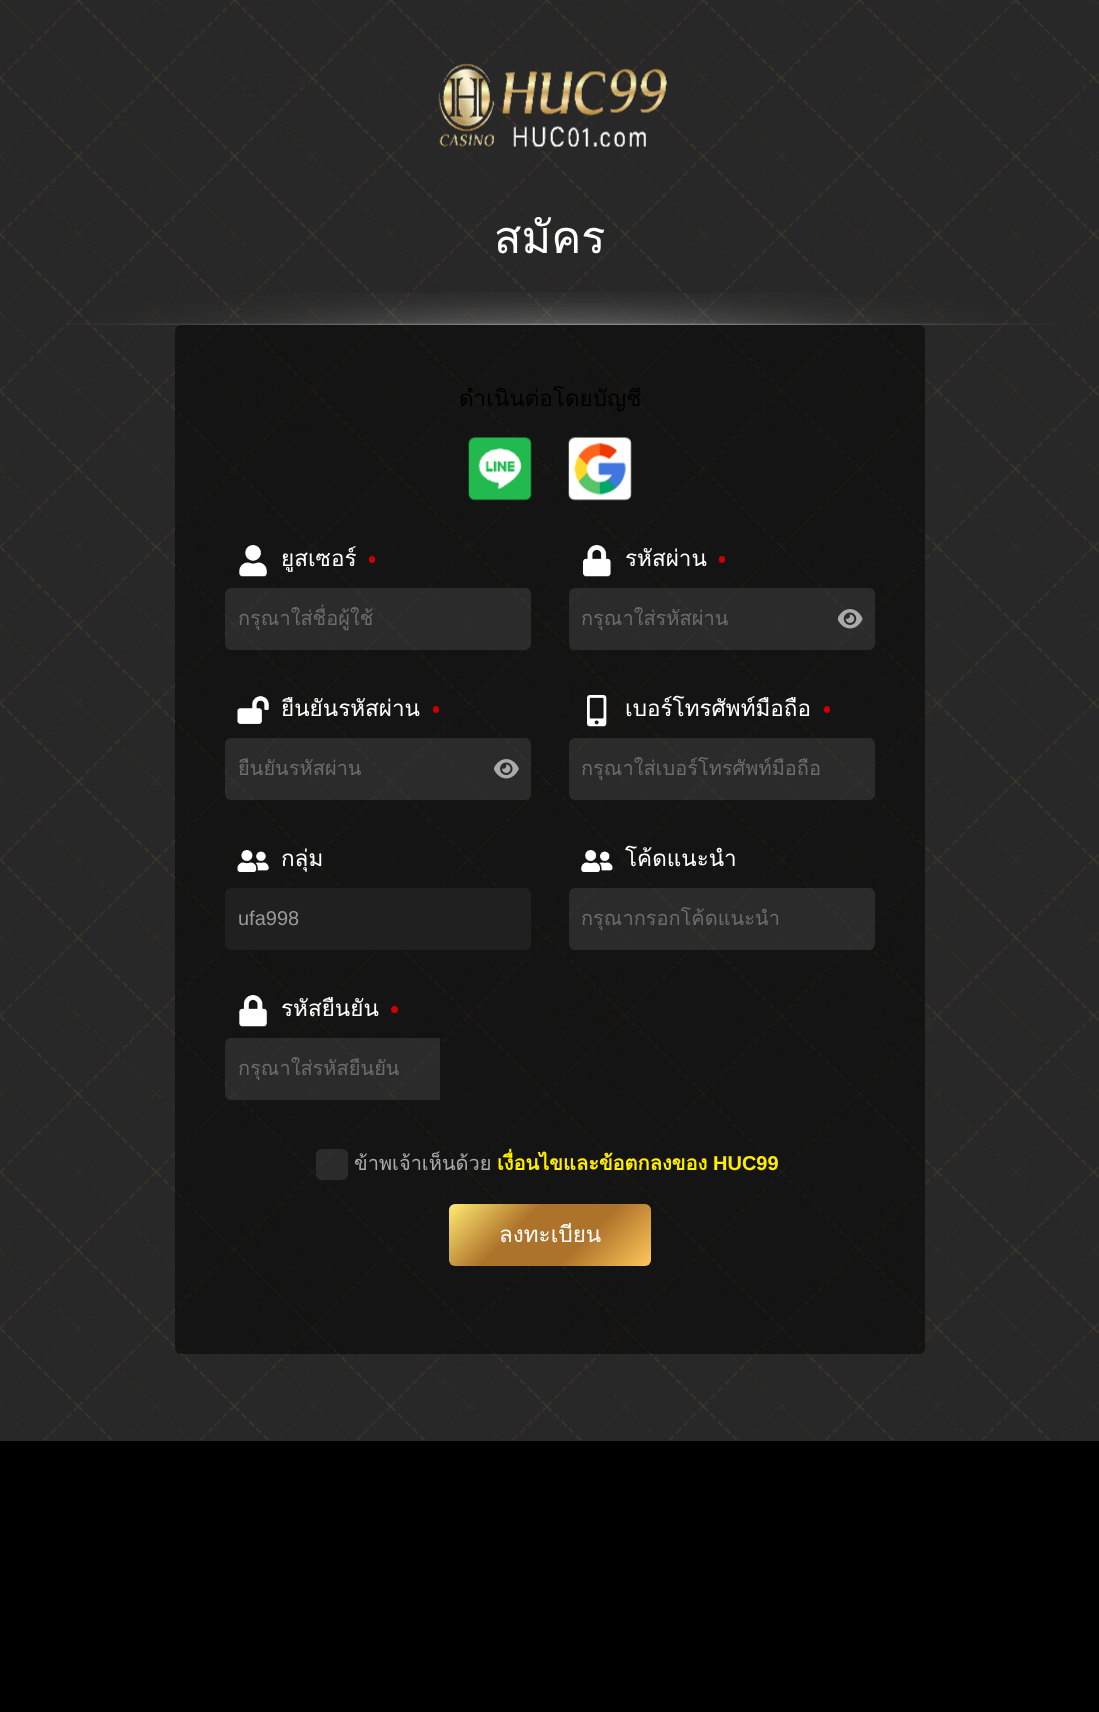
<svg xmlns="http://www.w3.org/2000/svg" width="1099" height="1712">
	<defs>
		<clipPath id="clip1"><rect x="238" y="753" width="251" height="31" /></clipPath>
		<linearGradient id="g1" gradientUnits="userSpaceOnUse" x1="484" y1="1169" x2="616" y2="1301"><stop offset="0" stop-color="#FFEB72" /><stop offset="0.35" stop-color="#AE732B" /><stop offset="0.65" stop-color="#AE732B" /><stop offset="1" stop-color="#FFC75A" /></linearGradient>
	</defs>
	<rect width="100%" height="100%" fill="#000000" />
	<rect x="0" y="0" width="1099" height="1441" fill="#282828" />
	<image x="0" y="0" width="1099" height="1441" href="assets/img1.png" />
	<image x="438" y="63" width="229" height="84" href="assets/img2.png" />
	<image x="66" y="292" width="993" height="33" href="assets/img3.png" />
	<text x="494" y="253" font-family="Loma" font-size="45" fill="#FFFFFF">สมัคร</text>
	<rect x="175" y="325" width="750" height="1029" rx="6" fill="#000000" fill-opacity="0.5" />
	<text x="459" y="406" font-family="Loma" font-size="22.5" fill="#000000">ดำเนินต่อโดยบัญชี</text>
	<image x="468" y="437" width="64" height="64" href="assets/img4.png" />
	<image x="568" y="437" width="64" height="64" href="assets/img5.png" />
	<image x="239" y="545" width="28" height="32" href="assets/img6.png" />
	<text x="281" y="566" font-family="Loma" font-size="22.5" fill="#FFFFFF">ยูสเซอร์</text>
	<rect x="369" y="556" width="6" height="7" rx="3" fill="#CC0000" />
	<rect x="225" y="588" width="306" height="62" rx="6" fill="#FFFFFF" fill-opacity="0.1" />
	<text x="238" y="625" font-family="Loma" font-size="20" fill="#6C6C6C">กรุณาใส่ชื่อผู้ใช้</text>
	<image x="583" y="545" width="28" height="32" href="assets/img7.png" />
	<text x="625" y="566" font-family="Loma" font-size="22.5" fill="#FFFFFF">รหัสผ่าน</text>
	<rect x="719" y="556" width="6" height="7" rx="3" fill="#CC0000" />
	<rect x="569" y="588" width="306" height="62" rx="6" fill="#FFFFFF" fill-opacity="0.1" />
	<text x="581" y="625" font-family="Loma" font-size="20" fill="#6C6C6C">กรุณาใส่รหัสผ่าน</text>
	<image x="838" y="609" width="25" height="20" href="assets/img8.png" />
	<image x="237" y="696" width="32" height="28" href="assets/img9.png" />
	<text x="281" y="716" font-family="Loma" font-size="22.5" fill="#FFFFFF">ยืนยันรหัสผ่าน</text>
	<rect x="433" y="706" width="6" height="7" rx="3" fill="#CC0000" />
	<rect x="225" y="738" width="306" height="62" rx="6" fill="#FFFFFF" fill-opacity="0.1" />
	<g clip-path="url(#clip1)">
		<text x="238" y="775" font-family="Loma" font-size="20" fill="#6C6C6C">ยืนยันรหัสผ่าน</text>
	</g>
	<image x="494" y="759" width="25" height="20" href="assets/img10.png" />
	<image x="587" y="695" width="20" height="32" href="assets/img11.png" />
	<text x="625" y="716" font-family="Loma" font-size="22.5" fill="#FFFFFF">เบอร์โทรศัพท์มือถือ</text>
	<rect x="824" y="706" width="6" height="7" rx="3" fill="#CC0000" />
	<rect x="569" y="738" width="306" height="62" rx="6" fill="#FFFFFF" fill-opacity="0.1" />
	<text x="581" y="775" font-family="Loma" font-size="20" fill="#6C6C6C">กรุณาใส่เบอร์โทรศัพท์มือถือ</text>
	<image x="237" y="850" width="32" height="22" href="assets/img12.png" />
	<text x="281" y="866" font-family="Loma" font-size="22.5" fill="#FFFFFF">กลุ่ม</text>
	<rect x="225" y="888" width="306" height="62" rx="6" fill="#202020" />
	<text x="238" y="925" font-family="Liberation Sans" font-size="20" fill="#999999">ufa998</text>
	<image x="581" y="850" width="32" height="22" href="assets/img13.png" />
	<text x="625" y="866" font-family="Loma" font-size="22.5" fill="#FFFFFF">โค้ดแนะนำ</text>
	<rect x="569" y="888" width="306" height="62" rx="6" fill="#FFFFFF" fill-opacity="0.1" />
	<text x="581" y="925" font-family="Loma" font-size="20" fill="#6C6C6C">กรุณากรอกโค้ดแนะนำ</text>
	<image x="239" y="995" width="28" height="32" href="assets/img14.png" />
	<text x="281" y="1016" font-family="Loma" font-size="22.5" fill="#FFFFFF">รหัสยืนยัน</text>
	<circle cx="394.5" cy="1009.5" r="3.5" fill="#CC0000" />
	<path d="M231 1038H440V1100H231C227.5 1100 225 1097.5 225 1094V1044C225 1040.5 227.5 1038 231 1038Z" fill="#FFFFFF" fill-opacity="0.1" />
	<text x="238" y="1075" font-family="Loma" font-size="20" fill="#6C6C6C">กรุณาใส่รหัสยืนยัน</text>
	<rect x="316" y="1149" width="32" height="31" rx="6" fill="#FFFFFF" fill-opacity="0.1" />
	<text x="354" y="1170" font-family="Loma" font-size="20" fill="#AAAAAA">ข้าพเจ้าเห็นด้วย</text>
	<text x="497" y="1170" font-family="Loma" font-size="20" font-weight="700" fill="#FFEE00">เงื่อนไขและข้อตกลงของ</text>
	<text x="713" y="1170" font-family="Liberation Sans" font-size="20" font-weight="700" fill="#FFEE00">HUC99</text>
	<rect x="449" y="1204" width="202" height="62" rx="6" fill="url(#g1)" />
	<text x="499" y="1242" font-family="Loma" font-size="22.5" fill="#FFFFFF">ลงทะเบียน</text>
</svg>
